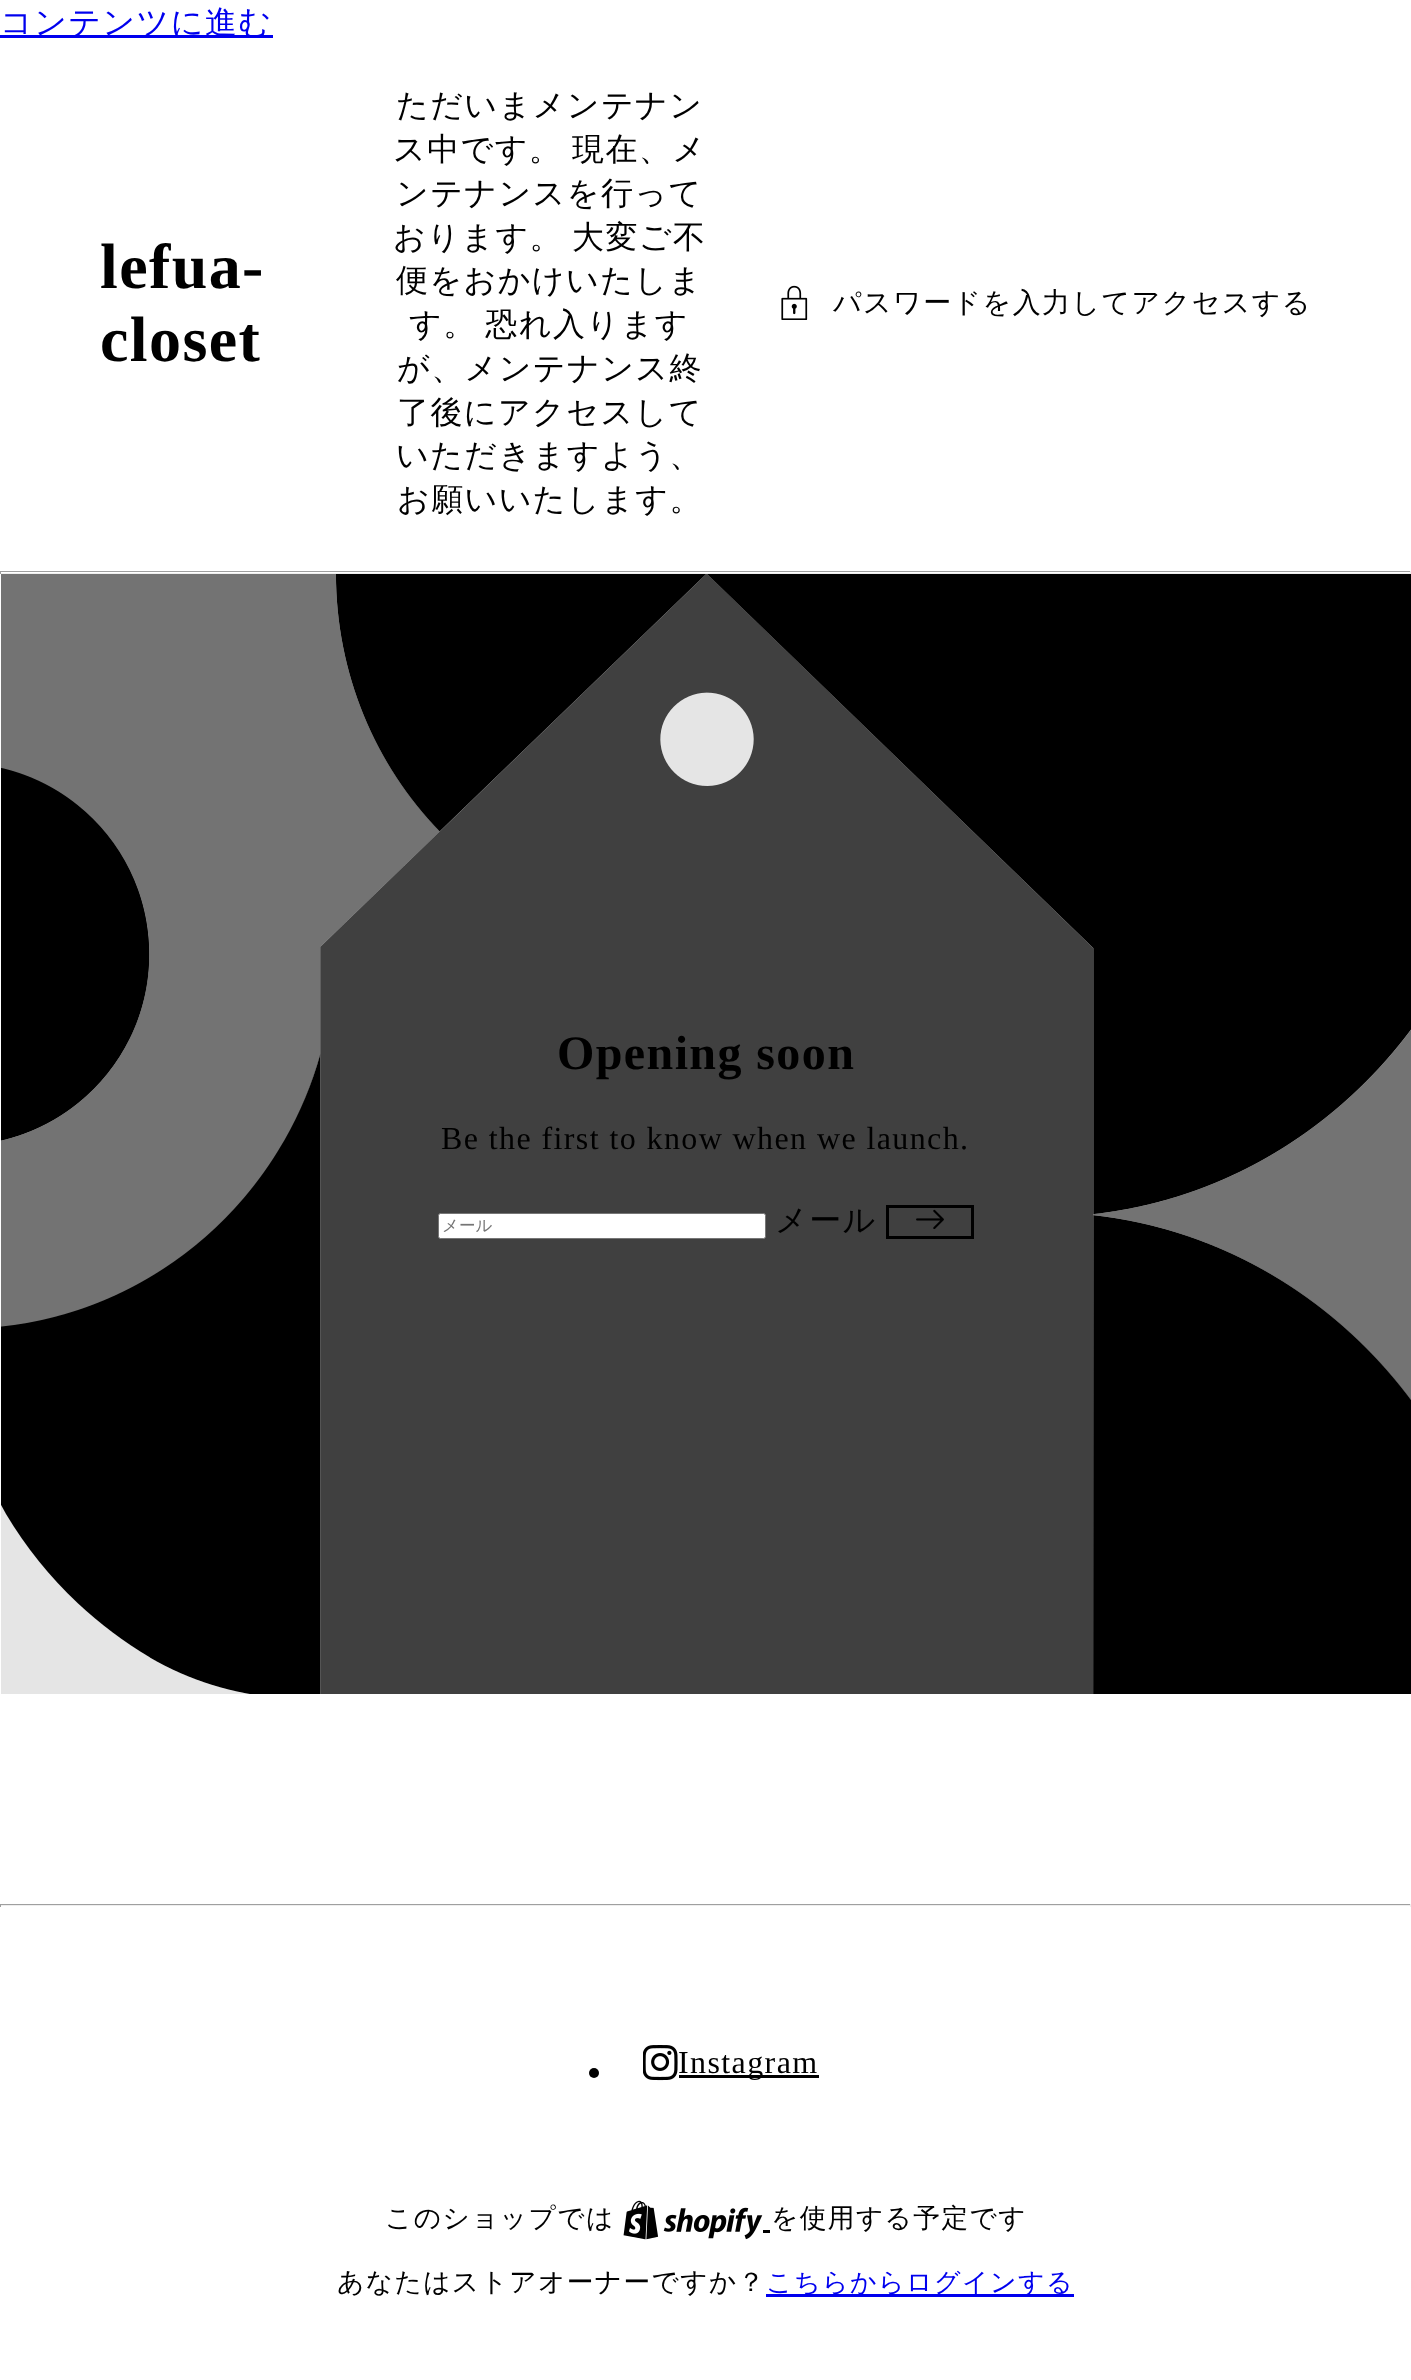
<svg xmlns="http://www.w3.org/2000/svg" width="1411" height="2380">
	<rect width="100%" height="100%" fill="#FFFFFF" />
	<rect x="0" y="35" width="273" height="3" fill="#0000EE" />
	<text x="0" y="33" font-family="WenQuanYi Zen Hei" font-size="32" font-weight="500" letter-spacing="1.4" fill="#0000EE">コンテンツに進む</text>
	<g font-family="Liberation Serif" font-size="64" font-weight="700" letter-spacing="1.4" fill="#000000">
		<text x="100" y="288">lefua-</text>
		<text x="100" y="361">closet</text>
	</g>
	<g font-family="WenQuanYi Zen Hei" font-size="32" font-weight="500" letter-spacing="1.4" fill="#000000">
		<text x="396" y="116">ただいまメンテナン</text>
		<text x="393" y="160">ス中です。</text>
		<text x="572" y="160">現在、メ</text>
		<text x="396" y="204">ンテナンスを行って</text>
		<text x="393" y="248" word-spacing="-2">おります。 大変ご不</text>
		<text x="396" y="291">便をおかけいたしま</text>
		<text x="409" y="335" word-spacing="-2">す。 恐れ入ります</text>
		<text x="397" y="379">が、メンテナンス終</text>
		<text x="397" y="423">了後にアクセスして</text>
		<text x="396" y="466">いただきますよう、</text>
		<text x="397" y="510">お願いいたします。</text>
	</g>
	<image x="781" y="285" width="27" height="35" href="assets/img1.png" />
	<text x="833" y="312" font-family="WenQuanYi Zen Hei" font-size="28" font-weight="500" letter-spacing="1.4" fill="#000000">パスワードを入力してアクセスする</text>
	<rect x="0" y="571" width="1411" height="1" fill="#9F9F9F" />
	<rect x="1410" y="571" width="1" height="3" fill="#EEEEEE" />
	<rect x="0" y="573" width="1411" height="1" fill="#EEEEEE" />
	<rect x="0" y="571" width="1" height="3" fill="#9F9F9F" />
	<image x="1" y="574" width="1410" height="1120" href="assets/img2.png" />
	<text x="557" y="1069" font-family="Liberation Serif" font-size="48" font-weight="700" letter-spacing="1.4" fill="#000000">Opening soon</text>
	<text x="441" y="1149" font-family="Liberation Serif" font-size="32" letter-spacing="1.4" fill="#000000">Be the first to know when we launch.</text>
	<rect x="438.5" y="1213.5" width="327" height="25" rx="2" fill="#FFFFFF" stroke="#767676" />
	<text x="442" y="1231" font-family="WenQuanYi Zen Hei" font-size="16.5" font-weight="500" fill="#757575">メール</text>
	<text x="775" y="1231" font-family="WenQuanYi Zen Hei" font-size="32" font-weight="500" letter-spacing="1.4" fill="#000000">メール</text>
	<rect x="887.5" y="1206.5" width="85" height="31" fill="none" stroke="#000000" stroke-width="3" />
	<image x="916" y="1209" width="28" height="20" href="assets/img3.png" />
	<rect x="0" y="1904" width="1411" height="1" fill="#9F9F9F" />
	<rect x="1410" y="1904" width="1" height="3" fill="#EEEEEE" />
	<rect x="0" y="1905" width="1411" height="1" fill="#EEEEEE" />
	<rect x="0" y="1904" width="1" height="3" fill="#9F9F9F" />
	<circle cx="594" cy="2073" r="5" fill="#000000" />
	<image x="643" y="2045" width="35" height="36" href="assets/img4.png" />
	<rect x="679" y="2075" width="140" height="3" fill="#000000" />
	<text x="678" y="2073" font-family="Liberation Serif" font-size="32" letter-spacing="1.4" fill="#000000">Instagram</text>
	<text x="385" y="2227" font-family="WenQuanYi Zen Hei" font-size="26.7" font-weight="500" letter-spacing="1.4" fill="#000000">このショップでは</text>
	<image x="623" y="2200" width="140" height="40" href="assets/img5.png" />
	<rect x="763" y="2230" width="7" height="3" fill="#000000" />
	<g font-family="WenQuanYi Zen Hei" font-size="26.7" font-weight="500" letter-spacing="1.4" fill="#000000">
		<text x="771" y="2227">を使用する予定です</text>
		<text x="337" y="2291">あなたはストアオーナーですか？</text>
	</g>
	<rect x="766" y="2294" width="308" height="3" fill="#0000EE" />
	<text x="766" y="2291" font-family="WenQuanYi Zen Hei" font-size="26" font-weight="500" letter-spacing="1.4" fill="#0000EE">こちらからログインする</text>
</svg>
